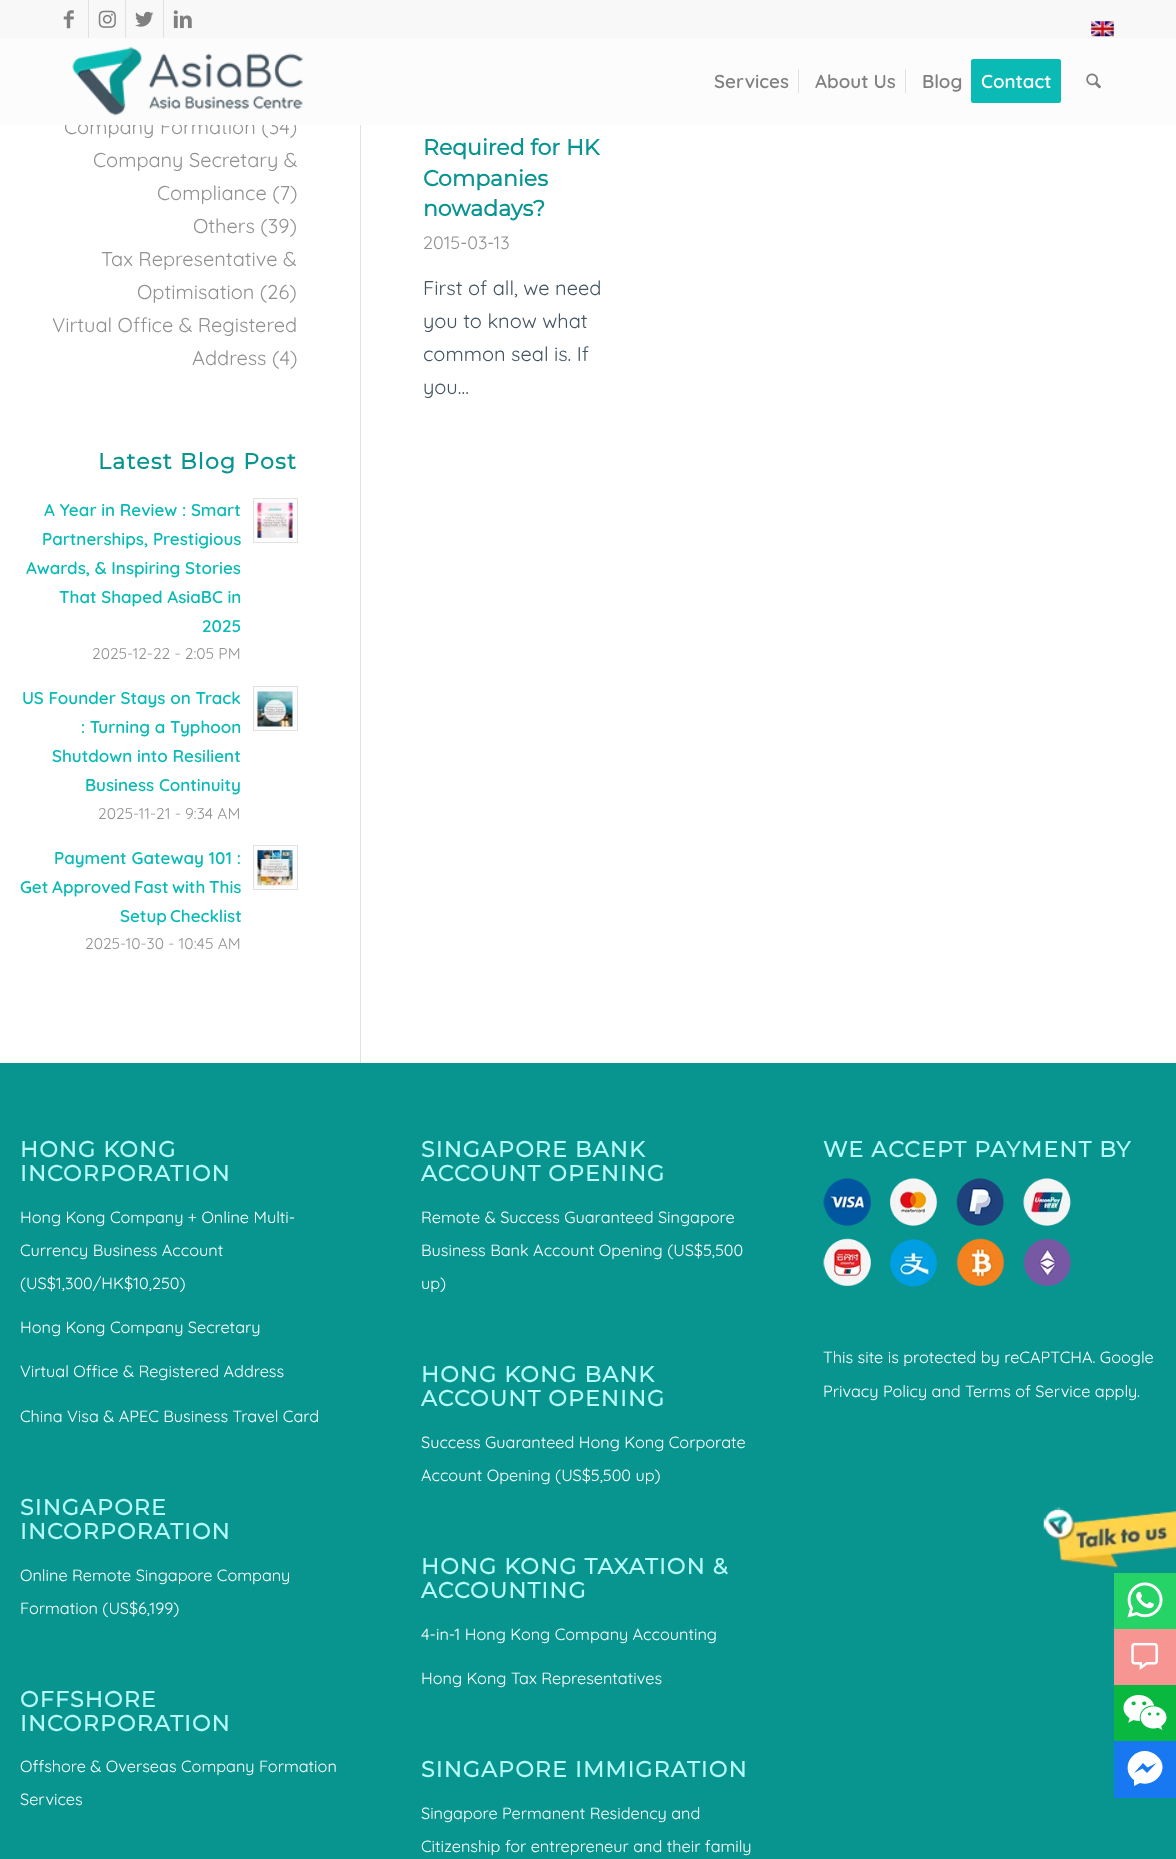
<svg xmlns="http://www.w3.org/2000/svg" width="1176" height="1859">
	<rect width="100%" height="100%" fill="#FFFFFF" />
	<rect x="0" y="0" width="1176" height="38" fill="#F8F8F8" />
	<rect x="88" y="0" width="1" height="38" fill="#E1E1E1" />
	<image x="63" y="10" width="11" height="19" href="assets/img1.png" />
	<rect x="125" y="0" width="1" height="38" fill="#E1E1E1" />
	<image x="98" y="10" width="18" height="18" href="assets/img2.png" />
	<rect x="163" y="0" width="1" height="38" fill="#E1E1E1" />
	<image x="135" y="11" width="19" height="16" href="assets/img3.png" />
	<image x="173" y="10" width="19" height="19" href="assets/img4.png" />
	<image x="1091" y="21" width="23" height="16" href="assets/img5.png" />
	<text x="64" y="134" font-family="Quicksand" font-size="20" fill="#919191">Company Formation (34)</text>
	<rect x="0" y="38" width="1176" height="87" fill="#FCFCFC" />
	<image x="72" y="47" width="231" height="69" href="assets/img6.png" />
	<g font-family="Quicksand" font-size="18.75" font-weight="600" fill="#808080">
		<text x="714" y="88">Services</text>
		<text x="815" y="88">About Us</text>
	</g>
	<rect x="798" y="69" width="1" height="24" fill="#E1E1E1" />
	<text x="922" y="88" font-family="Quicksand" font-size="18.75" font-weight="600" fill="#808080">Blog</text>
	<rect x="905" y="69" width="1" height="24" fill="#E1E1E1" />
	<rect x="972.5" y="60.5" width="87" height="41" rx="1" fill="#0ABAB4" stroke="#0ABAB4" stroke-width="3" />
	<text x="981" y="88" font-family="Quicksand" font-size="18.75" font-weight="600" fill="#FFFFFF">Contact</text>
	<image x="1086" y="73" width="15" height="16" href="assets/img7.png" />
	<rect x="360" y="125" width="1" height="938" fill="#E1E1E1" />
	<g font-family="Quicksand" font-size="20" fill="#919191">
		<text x="93" y="167">Company Secretary &amp;</text>
		<text x="157" y="200">Compliance (7)</text>
		<text x="193" y="233">Others (39)</text>
		<text x="101" y="266">Tax Representative &amp;</text>
		<text x="137" y="299">Optimisation (26)</text>
		<text x="52" y="332">Virtual Office &amp; Registered</text>
		<text x="192" y="365">Address (4)</text>
	</g>
	<text x="98" y="469" font-family="Montserrat" font-size="22" font-weight="700" letter-spacing="1.25" fill="#089590">Latest Blog Post</text>
	<g font-family="Quicksand" font-size="17" font-weight="600" fill="#0ABAB4">
		<text x="44" y="516">A Year in Review : Smart</text>
		<text x="42" y="545">Partnerships, Prestigious</text>
		<text x="26" y="574">Awards, &amp; Inspiring Stories</text>
		<text x="59" y="603">That Shaped AsiaBC in</text>
		<text x="202" y="632">2025</text>
	</g>
	<text x="92" y="659" font-family="Quicksand" font-size="15.6" fill="#919191">2025-12-22 - 2:05 PM</text>
	<rect x="253.5" y="498.5" width="44" height="44" fill="#FCFCFC" stroke="#E1E1E1" />
	<image x="257" y="502" width="36" height="36" href="assets/img8.png" />
	<g font-family="Quicksand" font-size="17" font-weight="600" fill="#0ABAB4">
		<text x="22" y="704">US Founder Stays on Track</text>
		<text x="81" y="733">: Turning a Typhoon</text>
		<text x="52" y="762">Shutdown into Resilient</text>
		<text x="85" y="791">Business Continuity</text>
	</g>
	<text x="98" y="819" font-family="Quicksand" font-size="15.6" fill="#919191">2025-11-21 - 9:34 AM</text>
	<rect x="253.5" y="686.5" width="44" height="44" fill="#FCFCFC" stroke="#E1E1E1" />
	<image x="257" y="691" width="36" height="36" href="assets/img9.png" />
	<g font-family="Quicksand" font-size="17" font-weight="600" fill="#0ABAB4">
		<text x="54" y="864">Payment Gateway 101 :</text>
		<text x="20" y="893">Get</text>
		<text x="52" y="893">Approved</text>
		<text x="134" y="893">Fast</text>
		<text x="172" y="893">with</text>
		<text x="209" y="893">This</text>
		<text x="120" y="922">Setup</text>
		<text x="170" y="922">Checklist</text>
	</g>
	<text x="85" y="949" font-family="Quicksand" font-size="15.6" fill="#919191">2025-10-30 - 10:45 AM</text>
	<rect x="253.5" y="845.5" width="44" height="44" fill="#FCFCFC" stroke="#E1E1E1" />
	<image x="257" y="850" width="36" height="36" href="assets/img10.png" />
	<g font-family="Montserrat" font-size="22" font-weight="700" fill="#089590">
		<text x="423" y="155">Required for HK</text>
		<text x="423" y="186">Companies</text>
		<text x="423" y="216">nowadays?</text>
	</g>
	<text x="423" y="249" font-family="Quicksand" font-size="18" fill="#919191">2015-03-13</text>
	<g font-family="Quicksand" font-size="20" fill="#435460">
		<text x="423" y="295">First of all, we need</text>
		<text x="423" y="328">you to know what</text>
		<text x="423" y="361">common seal is. If</text>
		<text x="423" y="394">you…</text>
	</g>
	<rect x="0" y="1063" width="1176" height="796" fill="#089590" />
	<g font-family="Montserrat" font-size="22" font-weight="700" letter-spacing="1.25" fill="#B4FBF9">
		<text x="20" y="1157">HONG KONG</text>
		<text x="20" y="1181">INCORPORATION</text>
	</g>
	<g font-family="Quicksand" font-size="16.25" fill="#FFFFFF">
		<text x="20" y="1223">Hong Kong Company + Online Multi-</text>
		<text x="20" y="1256">Currency Business Account</text>
		<text x="20" y="1289">(US$1,300/HK$10,250)</text>
		<text x="20" y="1333">Hong Kong Company Secretary</text>
		<text x="20" y="1377">Virtual Office &amp; Registered Address</text>
		<text x="20" y="1422">China Visa &amp; APEC Business Travel Card</text>
	</g>
	<g font-family="Montserrat" font-size="22" font-weight="700" letter-spacing="1.25" fill="#B4FBF9">
		<text x="20" y="1515">SINGAPORE</text>
		<text x="20" y="1539">INCORPORATION</text>
	</g>
	<g font-family="Quicksand" font-size="16.25" fill="#FFFFFF">
		<text x="20" y="1581">Online Remote Singapore Company</text>
		<text x="20" y="1614">Formation (US$6,199)</text>
	</g>
	<g font-family="Montserrat" font-size="22" font-weight="700" letter-spacing="1.25" fill="#B4FBF9">
		<text x="20" y="1707">OFFSHORE</text>
		<text x="20" y="1731">INCORPORATION</text>
	</g>
	<g font-family="Quicksand" font-size="16.25" fill="#FFFFFF">
		<text x="20" y="1772">Offshore &amp; Overseas Company Formation</text>
		<text x="20" y="1805">Services</text>
	</g>
	<g font-family="Montserrat" font-size="22" font-weight="700" letter-spacing="1.25" fill="#B4FBF9">
		<text x="421" y="1157">SINGAPORE BANK</text>
		<text x="421" y="1181">ACCOUNT OPENING</text>
	</g>
	<g font-family="Quicksand" font-size="16.25" fill="#FFFFFF">
		<text x="421" y="1223">Remote &amp; Success Guaranteed Singapore</text>
		<text x="421" y="1256">Business Bank Account Opening (US$5,500</text>
		<text x="421" y="1289">up)</text>
	</g>
	<g font-family="Montserrat" font-size="22" font-weight="700" letter-spacing="1.25" fill="#B4FBF9">
		<text x="421" y="1382">HONG KONG BANK</text>
		<text x="421" y="1406">ACCOUNT OPENING</text>
	</g>
	<g font-family="Quicksand" font-size="16.25" fill="#FFFFFF">
		<text x="421" y="1448">Success Guaranteed Hong Kong Corporate</text>
		<text x="421" y="1481">Account Opening (US$5,500 up)</text>
	</g>
	<g font-family="Montserrat" font-size="22" font-weight="700" letter-spacing="1.25" fill="#B4FBF9">
		<text x="421" y="1574">HONG KONG TAXATION &amp;</text>
		<text x="421" y="1598">ACCOUNTING</text>
	</g>
	<g font-family="Quicksand" font-size="16.25" fill="#FFFFFF">
		<text x="421" y="1640">4-in-1 Hong Kong Company Accounting</text>
		<text x="421" y="1684">Hong Kong Tax Representatives</text>
	</g>
	<text x="421" y="1777" font-family="Montserrat" font-size="22" font-weight="700" letter-spacing="1.25" fill="#B4FBF9">SINGAPORE IMMIGRATION</text>
	<g font-family="Quicksand" font-size="16.25" fill="#FFFFFF">
		<text x="421" y="1819">Singapore Permanent Residency and</text>
		<text x="421" y="1852">Citizenship for entrepreneur and their family</text>
	</g>
	<text x="823" y="1157" font-family="Montserrat" font-size="22" font-weight="700" letter-spacing="1.25" fill="#B4FBF9">WE ACCEPT PAYMENT BY</text>
	<image x="823" y="1178" width="248" height="109" href="assets/img11.png" />
	<g font-family="Quicksand" font-size="16.25" fill="#FFFFFF">
		<text x="823" y="1363">This site is protected by reCAPTCHA. Google</text>
		<text x="823" y="1397">Privacy Policy and Terms of Service apply.</text>
	</g>
	<image x="1043" y="1507" width="133" height="62" href="assets/img12.png" />
	<rect x="1114" y="1573" width="62" height="56" fill="#25D366" />
	<image x="1127" y="1582" width="36" height="36" href="assets/img13.png" />
	<rect x="1114" y="1629" width="62" height="56" fill="#F69592" />
	<image x="1131" y="1642" width="27" height="28" href="assets/img14.png" />
	<rect x="1114" y="1685" width="62" height="56" fill="#09B83E" />
	<image x="1123" y="1695" width="44" height="35" href="assets/img15.png" />
	<rect x="1114" y="1741" width="62" height="57" fill="#1778F2" />
	<path d="M1145 1751C1129.5 1751 1121 1770 1134 1780V1786L1140 1783C1157 1787.5 1171 1767 1156.5 1755.5C1153 1752.5 1149 1751 1145 1751ZM1147 1773L1142.5 1768.5L1134 1773L1143 1763L1147.5 1767.5L1156.5 1763Z" fill="#FFFFFF" />
</svg>
